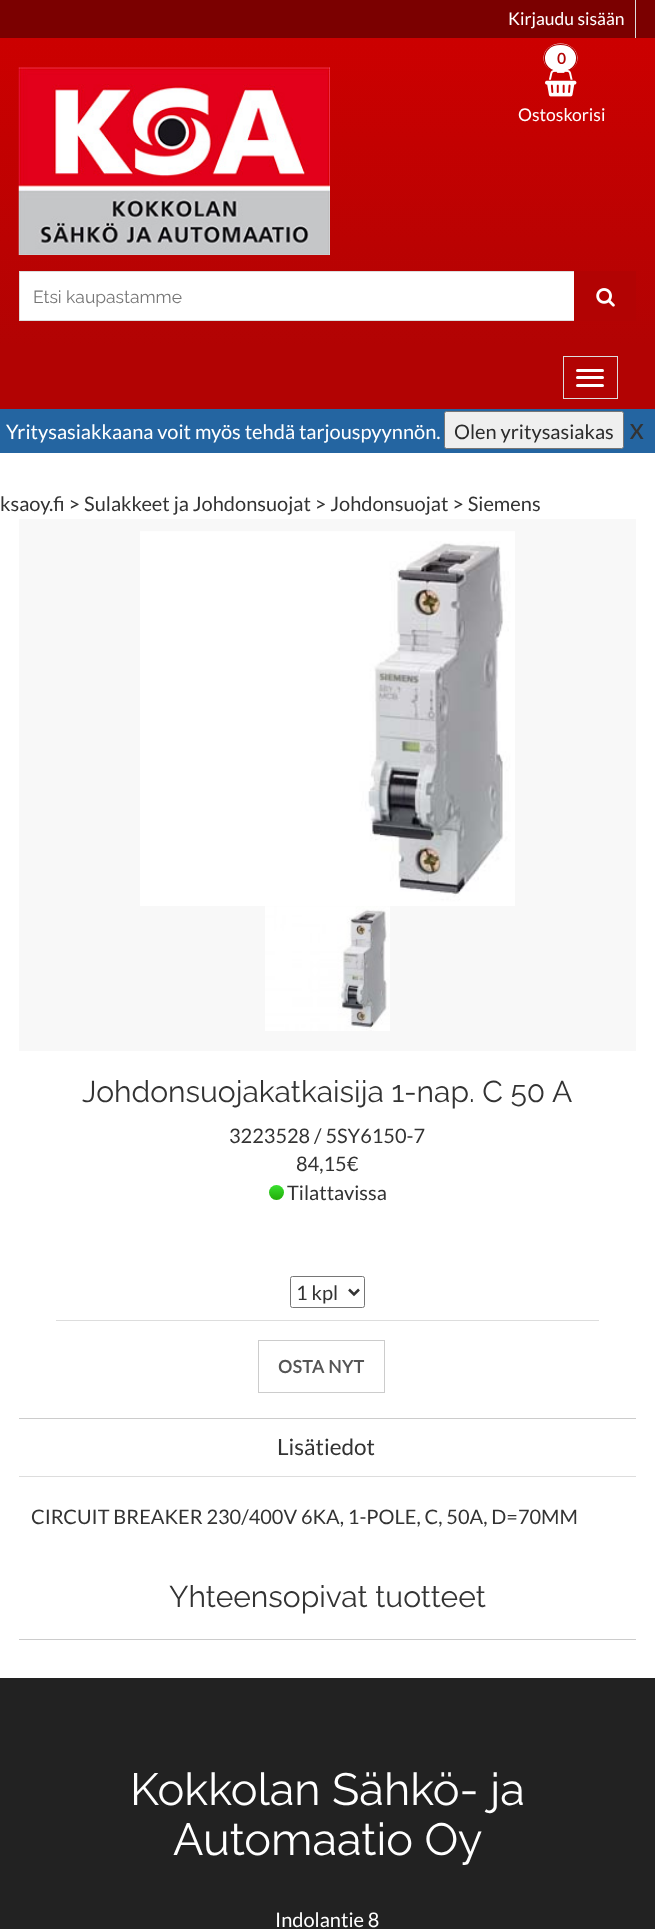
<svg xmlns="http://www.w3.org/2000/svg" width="655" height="1929">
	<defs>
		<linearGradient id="g1" gradientUnits="userSpaceOnUse" x1="328" y1="37" x2="328" y2="346"><stop offset="0" stop-color="#CC0000" /><stop offset="1" stop-color="#B20303" /></linearGradient>
		<linearGradient id="g2" gradientUnits="userSpaceOnUse" x1="276" y1="1185" x2="276" y2="1200"><stop offset="0" stop-color="#39E02F" /><stop offset="1" stop-color="#22AD09" /></linearGradient>
	</defs>
	<rect width="100%" height="100%" fill="#FFFFFF" />
	<rect x="0" y="0" width="655" height="38" fill="#7B0000" />
	<rect x="635" y="0" width="1" height="38" fill="#DDDDDD" />
	<text x="508" y="25" font-family="Lato" font-size="17.5" fill="#FFFFFF">Kirjaudu sisään</text>
	<rect x="0" y="38" width="655" height="308" fill="url(#g1)" />
	<image x="18" y="67" width="312" height="188" href="assets/img1.png" />
	<ellipse cx="560.5" cy="58" rx="17" ry="14.5" fill="#FFFFFF" />
	<path d="M560.5 44.5C582 44.5 582 72 560.5 72C539 72 539 44.5 560.5 44.5Z" fill="none" stroke="#B20303" stroke-width="1.2" />
	<text x="557" y="64" font-family="Lato" font-size="15" font-weight="700" fill="#B20303">0</text>
	<image x="545" y="70" width="32" height="27" href="assets/img2.png" />
	<text x="518" y="121" font-family="Lato" font-size="17.5" fill="#FFFFFF">Ostoskorisi</text>
	<rect x="20" y="272" width="554" height="48" fill="#FFFFFF" />
	<rect x="19.5" y="271.5" width="616" height="49" fill="none" stroke="#DDDDDD" />
	<text x="33" y="303" font-family="Raleway" font-size="17.5" font-weight="100" fill="#757575">Etsi kaupastamme</text>
	<rect x="574" y="271" width="62" height="50" fill="#B20303" />
	<image x="596" y="288" width="19" height="19" href="assets/img3.png" />
	<rect x="0" y="346" width="655" height="63" fill="#B20303" />
	<rect x="563.5" y="356.5" width="54" height="42" fill="none" stroke="#DDDDDD" />
	<rect x="576" y="369" width="28" height="3" rx="1.5" fill="#FFFFFF" />
	<rect x="576" y="376" width="28" height="3" rx="1.5" fill="#FFFFFF" />
	<rect x="576" y="384" width="28" height="3" rx="1.5" fill="#FFFFFF" />
	<rect x="0" y="409" width="655" height="44" fill="#2465A1" />
	<text x="6" y="439" font-family="Lato" font-size="20" fill="#FFFFFF">Yritysasiakkaana voit myös tehdä tarjouspyynnön.</text>
	<rect x="444.5" y="411.5" width="179" height="37" rx="2" fill="#EFEFEF" stroke="#767676" />
	<text x="454" y="439" font-family="Lato" font-size="20" fill="#2C2C2C">Olen yritysasiakas</text>
	<text x="630" y="439" font-family="Lato" font-size="20" font-weight="700" fill="#333333">X</text>
	<text x="0" y="511" font-family="Lato" font-size="20" fill="#333333">ksaoy.fi &gt; Sulakkeet ja Johdonsuojat &gt; Johdonsuojat &gt; Siemens</text>
	<rect x="19" y="519" width="617" height="532" fill="#F8F8F8" />
	<image x="140" y="531" width="375" height="375" href="assets/img4.png" />
	<image x="265" y="906" width="125" height="125" href="assets/img5.png" />
	<text x="82" y="1102" font-family="Raleway" font-size="30" font-weight="100" fill="#333333">Johdonsuojakatkaisija 1-nap. C 50 A</text>
	<g font-family="Lato" font-size="20" fill="#333333">
		<text x="229" y="1143">3223528 / 5SY6150-7</text>
		<text x="296" y="1171">84,15€</text>
	</g>
	<circle cx="276.5" cy="1192.5" r="7.5" fill="url(#g2)" />
	<text x="287" y="1200" font-family="Lato" font-size="20" fill="#333333">Tilattavissa</text>
	<rect x="290.5" y="1276.5" width="74" height="31" rx="2" fill="none" stroke="#767676" />
	<path d="M349 1289.5L354 1294.5L359 1289.5" fill="none" stroke="#333333" stroke-width="2.5" />
	<text x="296" y="1300" font-family="Lato" font-size="20" fill="#333333">1 kpl</text>
	<rect x="56" y="1320" width="543" height="1" fill="#DDDDDD" />
	<rect x="258.5" y="1340.5" width="126" height="52" fill="none" stroke="#CCCCCC" />
	<text x="278" y="1373" font-family="Lato" font-size="17.5" font-weight="700" letter-spacing="0.5" fill="#555555">OSTA NYT</text>
	<rect x="19" y="1418" width="617" height="1" fill="#CCCCCC" />
	<rect x="19" y="1476" width="617" height="1" fill="#DDDDDD" />
	<text x="277" y="1455" font-family="Lato" font-size="22.5" fill="#333333">Lisätiedot</text>
	<text x="31" y="1524" font-family="Lato" font-size="20" fill="#333333">CIRCUIT BREAKER 230/400V 6KA, 1-POLE, C, 50A, D=70MM</text>
	<rect x="19" y="1639" width="617" height="1" fill="#CCCCCC" />
	<text x="169" y="1607" font-family="Raleway" font-size="30" font-weight="100" fill="#333333">Yhteensopivat tuotteet</text>
	<rect x="0" y="1678" width="655" height="251" fill="#222222" />
	<g font-family="Raleway" font-size="45" font-weight="100" fill="#FFFFFF">
		<text x="130" y="1805">Kokkolan Sähkö- ja</text>
		<text x="173" y="1855">Automaatio Oy</text>
	</g>
	<text x="275" y="1927" font-family="Lato" font-size="20" fill="#FFFFFF">Indolantie 8</text>
</svg>
